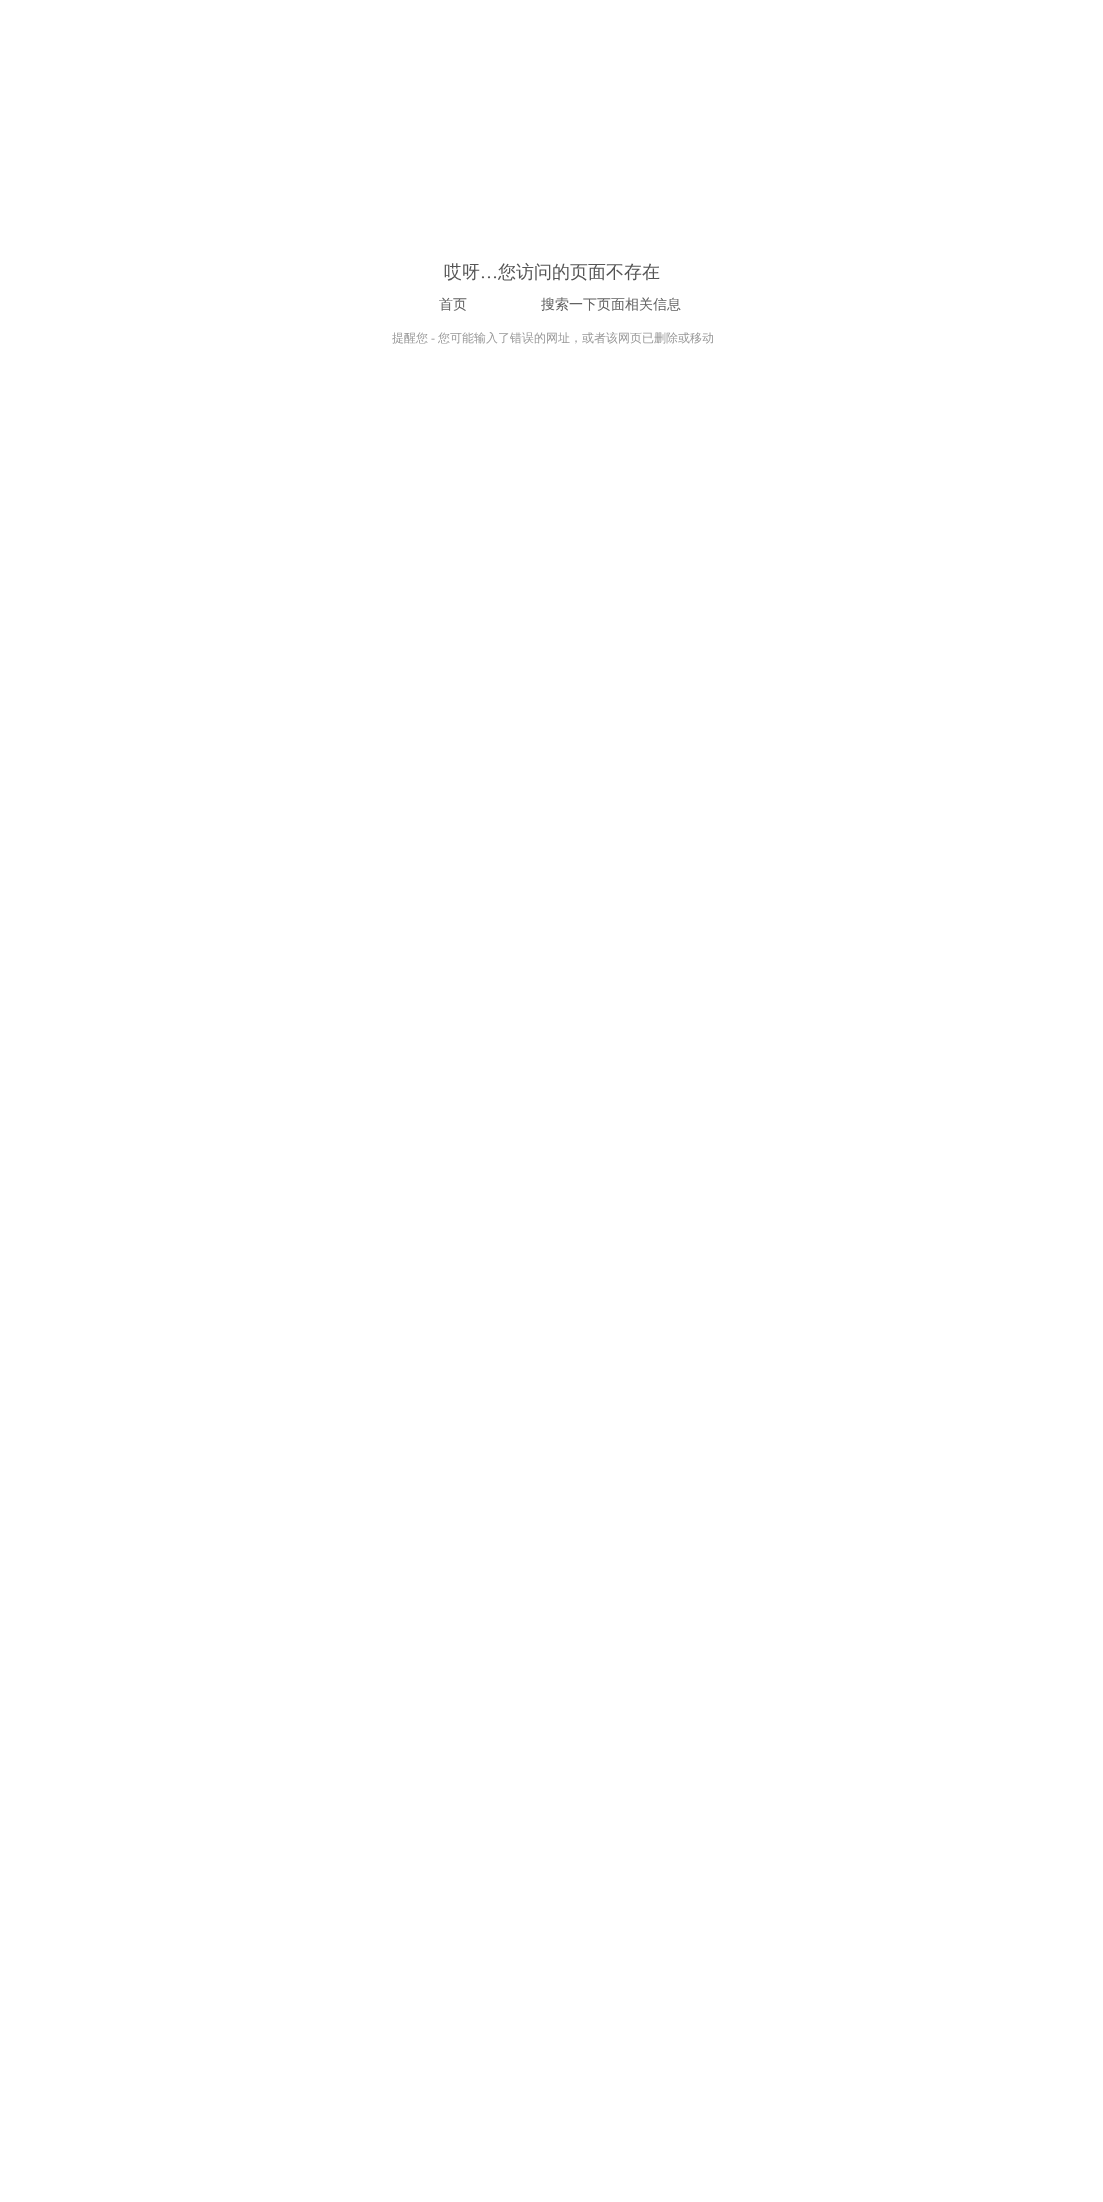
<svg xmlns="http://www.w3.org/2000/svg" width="1103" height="2202">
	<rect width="100%" height="100%" fill="#FFFFFF" />
	<text x="444" y="278" font-family="WenQuanYi Zen Hei" font-size="18" font-weight="500" fill="#555555">哎呀</text>
	<text x="480" y="278" font-family="Liberation Serif" font-size="18" fill="#555555">…</text>
	<text x="498" y="278" font-family="WenQuanYi Zen Hei" font-size="18" font-weight="500" fill="#555555">您访问的页面不存在</text>
	<g font-family="WenQuanYi Zen Hei" font-size="14" font-weight="500" fill="#626262">
		<text x="439" y="309">首页</text>
		<text x="541" y="309">搜索一下页面相关信息</text>
	</g>
	<text x="392" y="342" font-family="WenQuanYi Zen Hei" font-size="12" font-weight="500" fill="#999999">提醒您</text>
	<text x="431" y="342" font-family="Liberation Serif" font-size="12" fill="#999999">-</text>
	<text x="438" y="342" font-family="WenQuanYi Zen Hei" font-size="12" font-weight="500" fill="#999999">您可能输入了错误的网址，或者该网页已删除或移动</text>
</svg>
